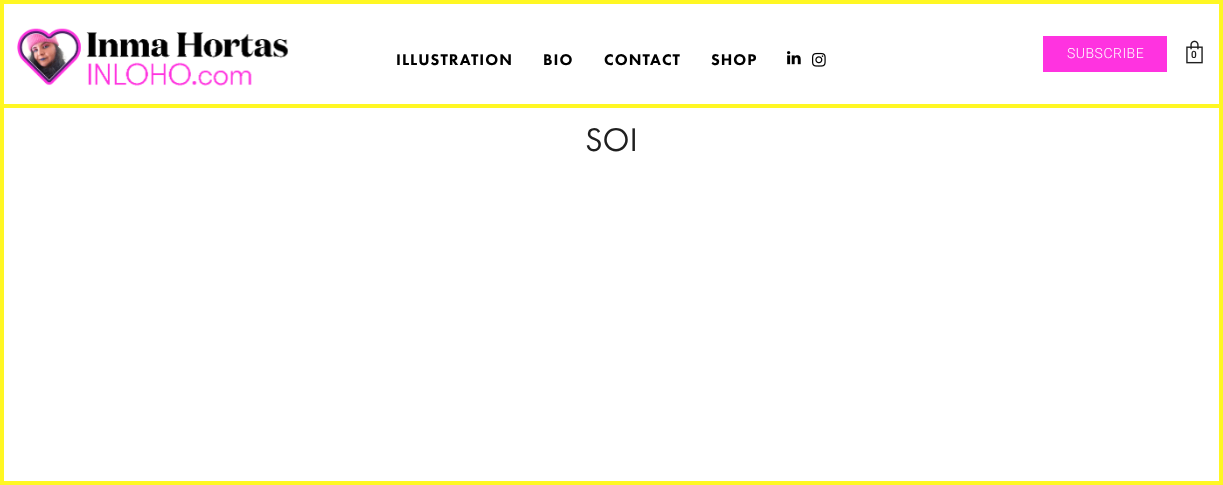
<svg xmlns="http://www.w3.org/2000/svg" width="1223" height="485">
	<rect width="100%" height="100%" fill="#FFFFFF" />
	<rect x="0" y="104" width="1223" height="4" fill="#FFF723" />
	<image x="17" y="28" width="272" height="58" href="assets/img1.png" />
	<image x="787" y="51" width="14" height="14" href="assets/img2.png" />
	<image x="812" y="52" width="14" height="15" href="assets/img3.png" />
	<rect x="1043" y="36" width="124" height="36" fill="#FF33E0" />
	<image x="1186" y="40" width="17" height="24" href="assets/img4.png" />
	<rect x="2" y="2" width="1219" height="481" fill="none" stroke="#FFF723" stroke-width="4" />
	<g font-family="Futura PT" font-size="16" font-weight="900" letter-spacing="1" fill="#000000">
		<text x="396" y="65">ILLUSTRATION</text>
		<text x="543" y="65">BIO</text>
		<text x="604" y="65">CONTACT</text>
		<text x="711" y="65">SHOP</text>
	</g>
	<text x="1067" y="58" font-family="Roboto" font-size="14" font-weight="300" letter-spacing="0.5" fill="#FFFFFF">SUBSCRIBE</text>
	<text x="1191" y="58" font-family="Roboto" font-size="10" font-weight="600" fill="#1F1F1F">0</text>
	<text x="585" y="151" font-family="Futura PT" font-size="34" fill="#1F1F1F">SOI</text>
</svg>
